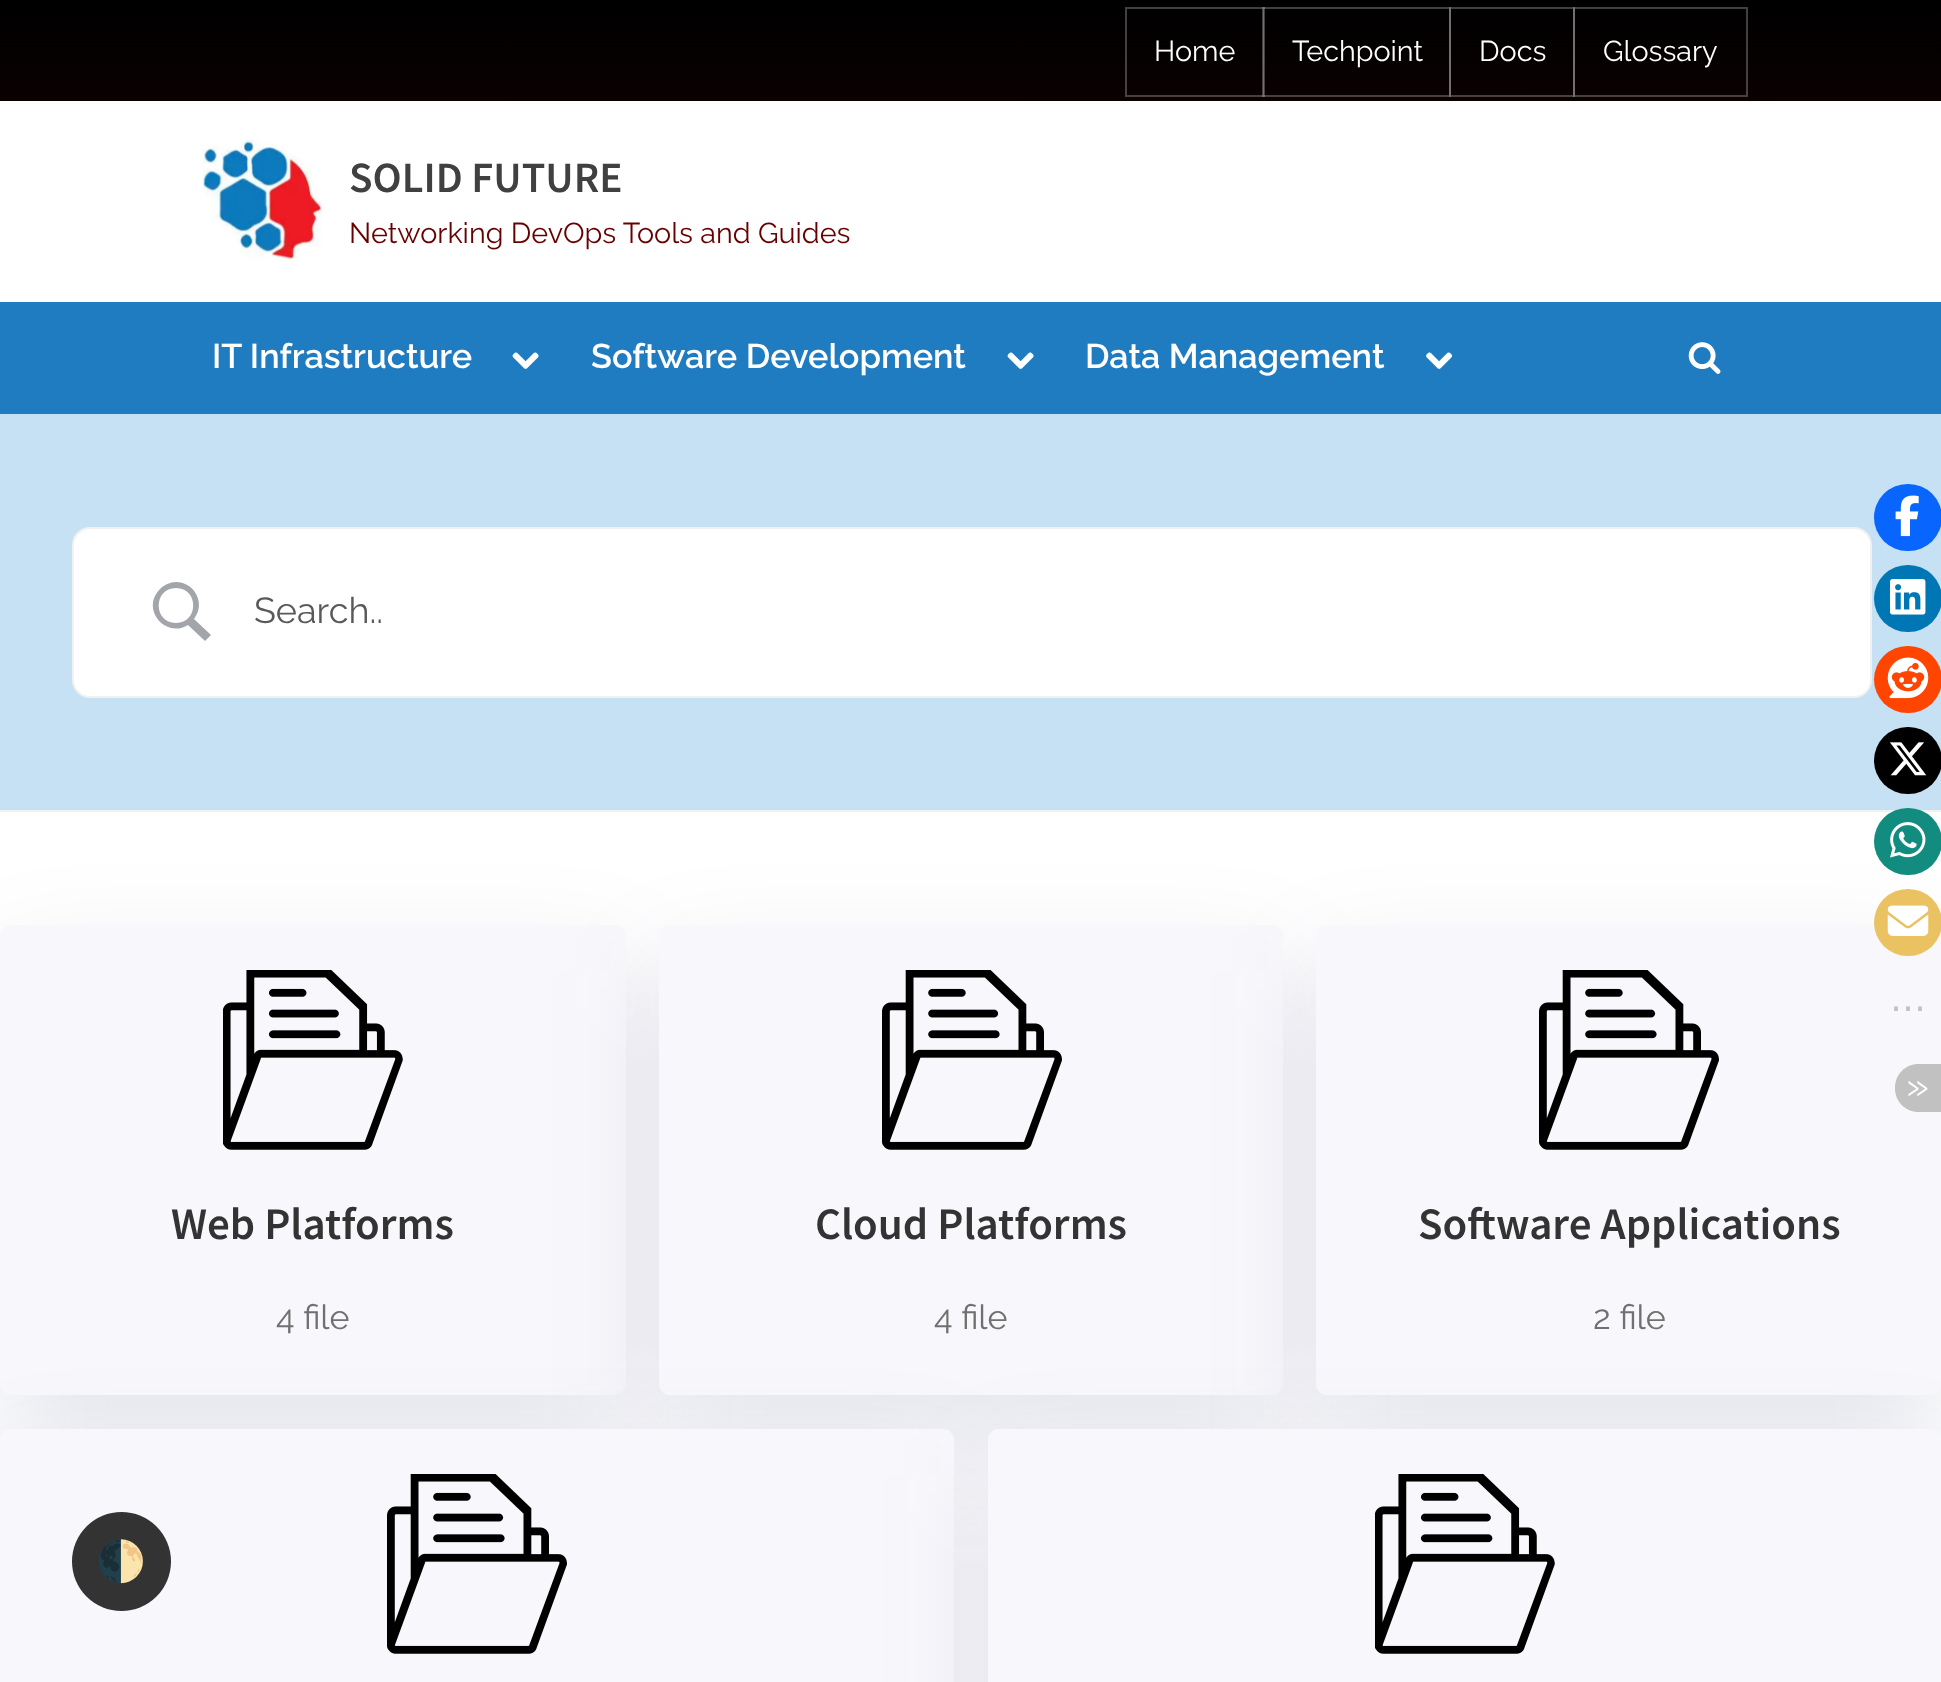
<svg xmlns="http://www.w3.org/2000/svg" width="1941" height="1682">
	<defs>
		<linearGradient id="g1" gradientUnits="userSpaceOnUse" x1="971" y1="101" x2="971" y2="0"><stop offset="0" stop-color="#0A0101" /><stop offset="1" stop-color="#000000" /></linearGradient>
	</defs>
	<rect width="100%" height="100%" fill="#FFFFFF" />
	<rect x="0" y="0" width="1941" height="101" fill="url(#g1)" />
	<rect x="1126" y="8" width="138" height="88" fill="none" stroke="#FFFFFF" stroke-opacity="0.25" stroke-width="2" />
	<text x="1154" y="61" font-family="Raleway" font-size="28.75" fill="#FFFFFF">Home</text>
	<rect x="1263" y="8" width="187" height="88" fill="none" stroke="#FFFFFF" stroke-opacity="0.25" stroke-width="2" />
	<text x="1292" y="61" font-family="Raleway" font-size="28.75" fill="#FFFFFF">Techpoint</text>
	<rect x="1450" y="8" width="124" height="88" fill="none" stroke="#FFFFFF" stroke-opacity="0.25" stroke-width="2" />
	<text x="1479" y="61" font-family="Raleway" font-size="28.75" fill="#FFFFFF">Docs</text>
	<rect x="1574" y="8" width="173" height="88" fill="none" stroke="#FFFFFF" stroke-opacity="0.25" stroke-width="2" />
	<text x="1603" y="61" font-family="Raleway" font-size="28.75" fill="#FFFFFF">Glossary</text>
	<image x="202" y="137" width="120" height="125" href="assets/img1.png" />
	<text x="349" y="192" font-family="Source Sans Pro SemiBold" font-size="43.25" font-weight="600" fill="#404040">SOLID FUTURE</text>
	<text x="349" y="243" font-family="Raleway" font-size="28.75" fill="#680000">Networking DevOps Tools and Guides</text>
	<rect x="0" y="302" width="1941" height="112" fill="#207CC1" />
	<text x="212" y="368" font-family="Raleway" font-size="34.25" font-weight="600" fill="#FFFFFF">IT Infrastructure</text>
	<image x="512" y="352" width="27" height="17" href="assets/img2.png" />
	<text x="591" y="368" font-family="Raleway" font-size="34.25" font-weight="600" fill="#FFFFFF">Software Development</text>
	<image x="1007" y="352" width="27" height="17" href="assets/img2.png" />
	<text x="1085" y="368" font-family="Raleway" font-size="34.25" font-weight="600" fill="#FFFFFF">Data Management</text>
	<image x="1426" y="352" width="27" height="17" href="assets/img3.png" />
	<image x="1688" y="342" width="33" height="32" href="assets/img4.png" />
	<rect x="0" y="414" width="1941" height="396" fill="#C6E0F4" />
	<rect x="0" y="810" width="1941" height="2" fill="#F1F1F1" />
	<rect x="73" y="528" width="1798" height="169" rx="17" fill="#FFFFFF" stroke="#F1F1F1" stroke-width="2" />
	<path d="M176 582C170 582 164 585 160 589C140 609 166 639 188 625L205 641L211 635L194 619C206 604 195 582 176 582ZM176 588C199 588 199 623 176 623C153 623 153 588 176 588Z" fill="#A2A5AA" />
	<text x="254" y="623" font-family="Raleway" font-size="36" fill="#595959">Search..</text>
	<rect x="0" y="970" width="626" height="470" rx="11" fill="#00094E" fill-opacity="0.1" filter="blur(56px)" />
	<rect x="0" y="925" width="626" height="470" rx="11" fill="#F8F8FC" />
	<image x="223" y="970" width="180" height="180" href="assets/img5.png" />
	<text x="171" y="1239" font-family="Source Sans Pro SemiBold" font-size="45" font-weight="600" fill="#333333">Web Platforms</text>
	<text x="276" y="1329" font-family="Raleway" font-size="34" fill="#707070">4 file</text>
	<rect x="659" y="970" width="624" height="470" rx="11" fill="#00094E" fill-opacity="0.1" filter="blur(56px)" />
	<rect x="659" y="925" width="624" height="470" rx="11" fill="#F8F8FC" />
	<image x="882" y="970" width="180" height="180" href="assets/img6.png" />
	<text x="815" y="1239" font-family="Source Sans Pro SemiBold" font-size="45" font-weight="600" fill="#333333">Cloud Platforms</text>
	<text x="934" y="1329" font-family="Raleway" font-size="34" fill="#707070">4 file</text>
	<rect x="1316" y="970" width="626" height="470" rx="11" fill="#00094E" fill-opacity="0.1" filter="blur(56px)" />
	<rect x="1316" y="925" width="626" height="470" rx="11" fill="#F8F8FC" />
	<image x="1539" y="970" width="180" height="180" href="assets/img6.png" />
	<text x="1418" y="1239" font-family="Source Sans Pro SemiBold" font-size="45" font-weight="600" fill="#333333">Software Applications</text>
	<text x="1593" y="1329" font-family="Raleway" font-size="34" fill="#707070">2 file</text>
	<rect x="0" y="1474" width="954" height="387" rx="11" fill="#00094E" fill-opacity="0.1" filter="blur(56px)" />
	<rect x="0" y="1429" width="954" height="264" rx="11" fill="#F8F8FC" />
	<image x="387" y="1474" width="180" height="180" href="assets/img6.png" />
	<rect x="988" y="1474" width="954" height="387" rx="11" fill="#00094E" fill-opacity="0.1" filter="blur(56px)" />
	<rect x="988" y="1429" width="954" height="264" rx="11" fill="#F8F8FC" />
	<image x="1375" y="1474" width="180" height="180" href="assets/img5.png" />
	<rect x="1874" y="484" width="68" height="67" rx="33.5" fill="#0866FF" />
	<image x="1895" y="495" width="24" height="42" href="assets/img7.png" />
	<rect x="1874" y="565" width="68" height="67" rx="33.5" fill="#0077B5" />
	<image x="1890" y="579" width="36" height="36" href="assets/img8.png" />
	<rect x="1874" y="646" width="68" height="67" rx="33.5" fill="#FF4500" />
	<image x="1887" y="657" width="42" height="42" href="assets/img9.png" />
	<rect x="1874" y="727" width="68" height="67" rx="33.5" fill="#000000" />
	<image x="1890" y="742" width="37" height="34" href="assets/img10.png" />
	<rect x="1874" y="808" width="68" height="67" rx="33.5" fill="#128C7E" />
	<image x="1890" y="822" width="36" height="36" href="assets/img11.png" />
	<rect x="1874" y="889" width="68" height="67" rx="33.5" fill="#EBC262" />
	<image x="1887" y="905" width="42" height="31" href="assets/img12.png" />
	<text x="1890" y="1020" font-family="DejaVu Sans" font-size="36" fill="#C1C1C1">⋯</text>
	<path d="M1918.5 1064H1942V1112H1918.5C1905.5 1112 1895 1101.5 1895 1088.5V1087.5C1895 1074.5 1905.5 1064 1918.5 1064Z" fill="#C1C1C1" />
	<text x="1906" y="1099" font-family="Raleway" font-size="40" fill="#FFFFFF">»</text>
	<circle cx="121.5" cy="1561.5" r="49.5" fill="#333333" />
	<text x="96" y="1575" font-family="Noto Color Emoji" font-size="40" font-weight="700" fill="#FFFFFF">🌓</text>
</svg>
